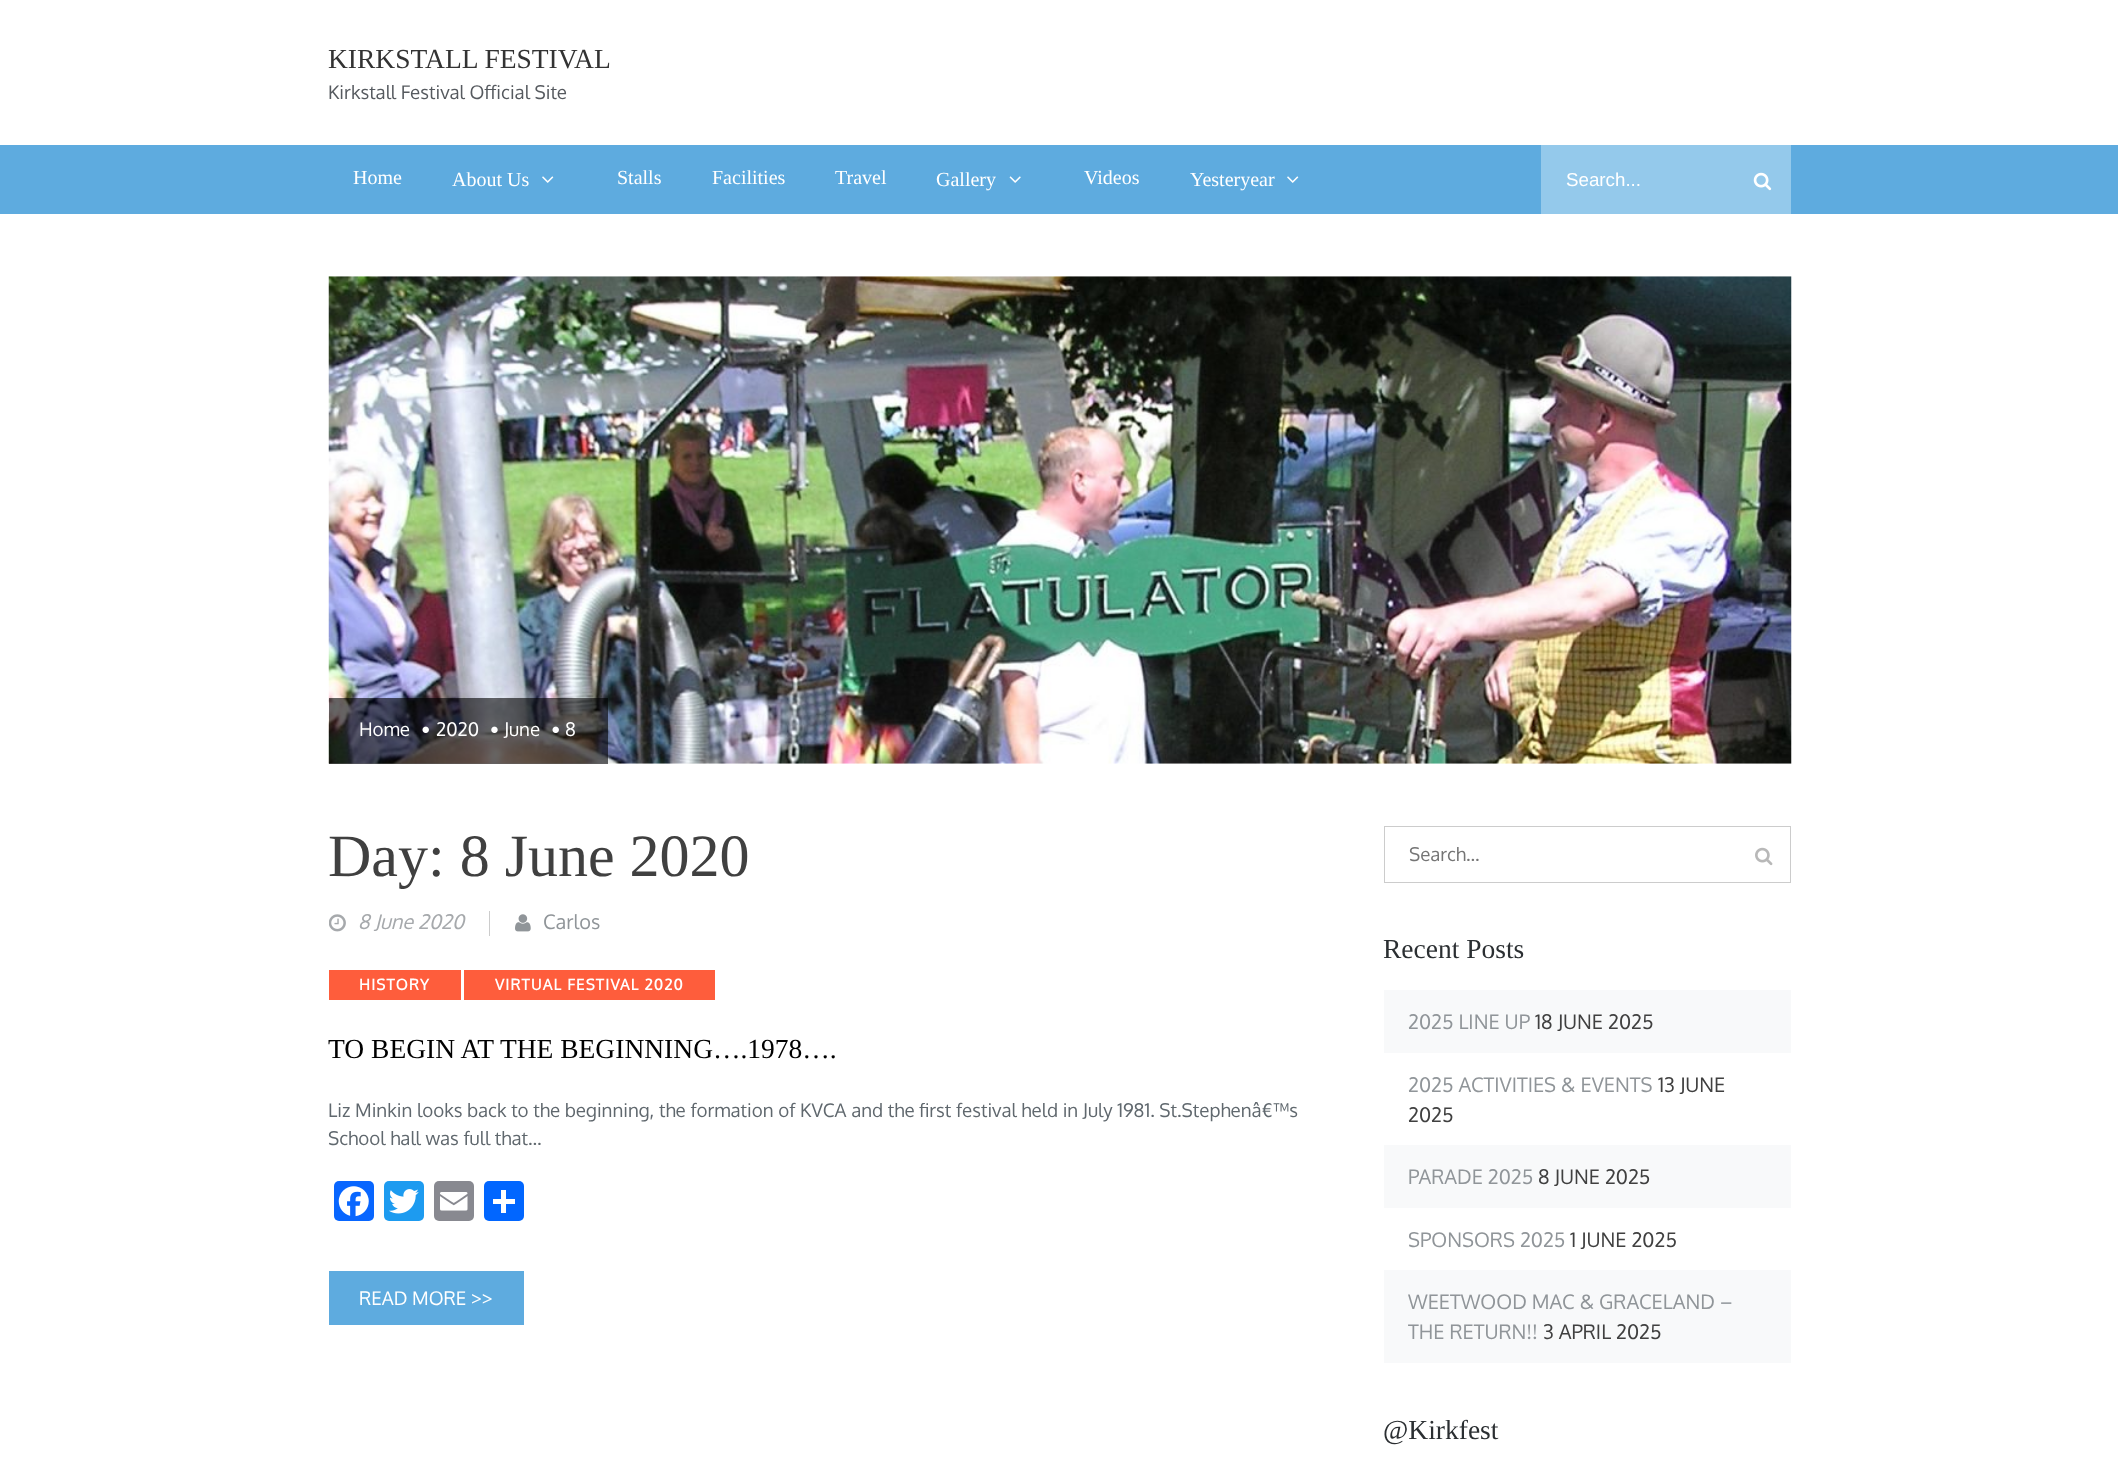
<svg xmlns="http://www.w3.org/2000/svg" width="2118" height="1465">
	<rect width="100%" height="100%" fill="#FFFFFF" />
	<text x="328" y="68" font-family="Liberation Serif" font-size="27.5" fill="#333333">KIRKSTALL FESTIVAL</text>
	<text x="328" y="99" font-family="Oxygen" font-size="18.75" fill="#565A5F">Kirkstall Festival Official Site</text>
	<rect x="0" y="145" width="2118" height="69" fill="#5EABDF" />
	<g font-family="Liberation Serif" font-size="20" fill="#FFFFFF">
		<text x="353" y="184">Home</text>
		<text x="452" y="186">About Us</text>
	</g>
	<image x="542" y="176" width="12" height="7" href="assets/img1.png" />
	<g font-family="Liberation Serif" font-size="20" fill="#FFFFFF">
		<text x="617" y="184">Stalls</text>
		<text x="712" y="184">Facilities</text>
		<text x="835" y="184">Travel</text>
		<text x="936" y="186">Gallery</text>
	</g>
	<image x="1009" y="176" width="12" height="7" href="assets/img2.png" />
	<g font-family="Liberation Serif" font-size="20" fill="#FFFFFF">
		<text x="1084" y="184">Videos</text>
		<text x="1190" y="186">Yesteryear</text>
	</g>
	<image x="1287" y="176" width="12" height="7" href="assets/img1.png" />
	<rect x="1541" y="145" width="250" height="69" fill="#94C9EB" />
	<text x="1566" y="186" font-family="Liberation Sans" font-size="18.75" fill="#FFFFFF">Search...</text>
	<image x="1753" y="172" width="19" height="19" href="assets/img3.png" />
	<image x="328" y="276" width="1464" height="488" href="assets/img4.png" />
	<rect x="329" y="698" width="279" height="66" fill="#000000" fill-opacity="0.6" />
	<text x="359" y="736" font-family="Oxygen" font-size="18.75" fill="#FFFFFF">Home</text>
	<image x="422" y="726" width="7" height="7" href="assets/img5.png" />
	<text x="436" y="736" font-family="Oxygen" font-size="18.75" fill="#FFFFFF">2020</text>
	<image x="491" y="726" width="7" height="7" href="assets/img6.png" />
	<text x="504" y="736" font-family="Oxygen" font-size="18.75" fill="#FFFFFF">June</text>
	<image x="552" y="726" width="7" height="7" href="assets/img7.png" />
	<text x="565" y="736" font-family="Oxygen" font-size="18.75" fill="#FFFFFF">8</text>
	<text x="328" y="876" font-family="Liberation Serif" font-size="60" fill="#404040">Day: 8 June 2020</text>
	<image x="329" y="914" width="17" height="18" href="assets/img8.png" />
	<text x="358" y="929" font-family="Oxygen" font-size="20" font-style="italic" fill="#A6A9AC">8 June 2020</text>
	<rect x="489" y="911" width="1" height="25" fill="#CCCCCC" />
	<image x="515" y="914" width="16" height="18" href="assets/img9.png" />
	<text x="543" y="929" font-family="Oxygen" font-size="20" fill="#909599">Carlos</text>
	<rect x="329" y="970" width="132" height="30" fill="#FE5D3C" />
	<text x="359" y="990" font-family="Oxygen" font-size="15" font-weight="700" letter-spacing="1.25" fill="#FFFFFF">HISTORY</text>
	<rect x="464" y="970" width="251" height="30" fill="#FE5D3C" />
	<text x="495" y="990" font-family="Oxygen" font-size="15" font-weight="700" letter-spacing="1.25" fill="#FFFFFF">VIRTUAL FESTIVAL 2020</text>
	<text x="328" y="1058" font-family="Liberation Serif" font-size="27.5" fill="#000000">TO BEGIN AT THE BEGINNING….1978….</text>
	<g font-family="Oxygen" font-size="18.75" fill="#60686E">
		<text x="328" y="1117">Liz Minkin looks back to the beginning, the formation of KVCA and the first festival held in July 1981. St.Stephenâ€™s</text>
		<text x="328" y="1145">School hall was full that…</text>
	</g>
	<rect x="334" y="1181" width="40" height="40" rx="5" fill="#0866FF" />
	<image x="338" y="1186" width="31" height="31" href="assets/img10.png" />
	<rect x="384" y="1181" width="40" height="40" rx="5" fill="#1D9BF0" />
	<image x="389" y="1189" width="30" height="25" href="assets/img11.png" />
	<rect x="434" y="1181" width="40" height="40" rx="5" fill="#888990" />
	<image x="440" y="1192" width="28" height="19" href="assets/img12.png" />
	<rect x="484" y="1181" width="40" height="40" rx="5" fill="#0166FF" />
	<rect x="501" y="1190" width="5" height="23" fill="#FFFFFF" />
	<rect x="493" y="1199" width="22" height="5" fill="#FFFFFF" />
	<rect x="329" y="1271" width="195" height="54" fill="#5EABDF" />
	<text x="359" y="1305" font-family="Oxygen" font-size="18.75" fill="#FFFFFF">READ MORE &gt;&gt;</text>
	<rect x="1384.5" y="826.5" width="406" height="56" fill="none" stroke="#CCCCCC" />
	<text x="1409" y="861" font-family="Oxygen" font-size="18.75" fill="#757575">Search...</text>
	<image x="1755" y="847" width="18" height="19" href="assets/img13.png" />
	<text x="1383" y="958" font-family="Liberation Serif" font-size="27.5" fill="#2B2F32">Recent Posts</text>
	<rect x="1384" y="990" width="407" height="63" fill="#F8F9FA" />
	<text x="1408" y="1029" font-family="Oxygen" font-size="20" fill="#909599">2025 LINE UP</text>
	<text x="1535" y="1029" font-family="Oxygen" font-size="20" fill="#404040">18 JUNE 2025</text>
	<text x="1408" y="1092" font-family="Oxygen" font-size="20" fill="#909599">2025 ACTIVITIES &amp; EVENTS</text>
	<g font-family="Oxygen" font-size="20" fill="#404040">
		<text x="1658" y="1092">13 JUNE</text>
		<text x="1408" y="1122">2025</text>
	</g>
	<rect x="1384" y="1145" width="407" height="63" fill="#F8F9FA" />
	<text x="1408" y="1184" font-family="Oxygen" font-size="20" fill="#909599">PARADE 2025</text>
	<text x="1538" y="1184" font-family="Oxygen" font-size="20" fill="#404040">8 JUNE 2025</text>
	<text x="1408" y="1247" font-family="Oxygen" font-size="20" fill="#909599">SPONSORS 2025</text>
	<text x="1570" y="1247" font-family="Oxygen" font-size="20" fill="#404040">1 JUNE 2025</text>
	<rect x="1384" y="1270" width="407" height="93" fill="#F8F9FA" />
	<g font-family="Oxygen" font-size="20" fill="#909599">
		<text x="1408" y="1309">WEETWOOD MAC &amp; GRACELAND –</text>
		<text x="1408" y="1339">THE RETURN!!</text>
	</g>
	<text x="1543" y="1339" font-family="Oxygen" font-size="20" fill="#404040">3 APRIL 2025</text>
	<text x="1383" y="1439" font-family="Liberation Serif" font-size="27.5" fill="#2B2F32">@Kirkfest</text>
</svg>
